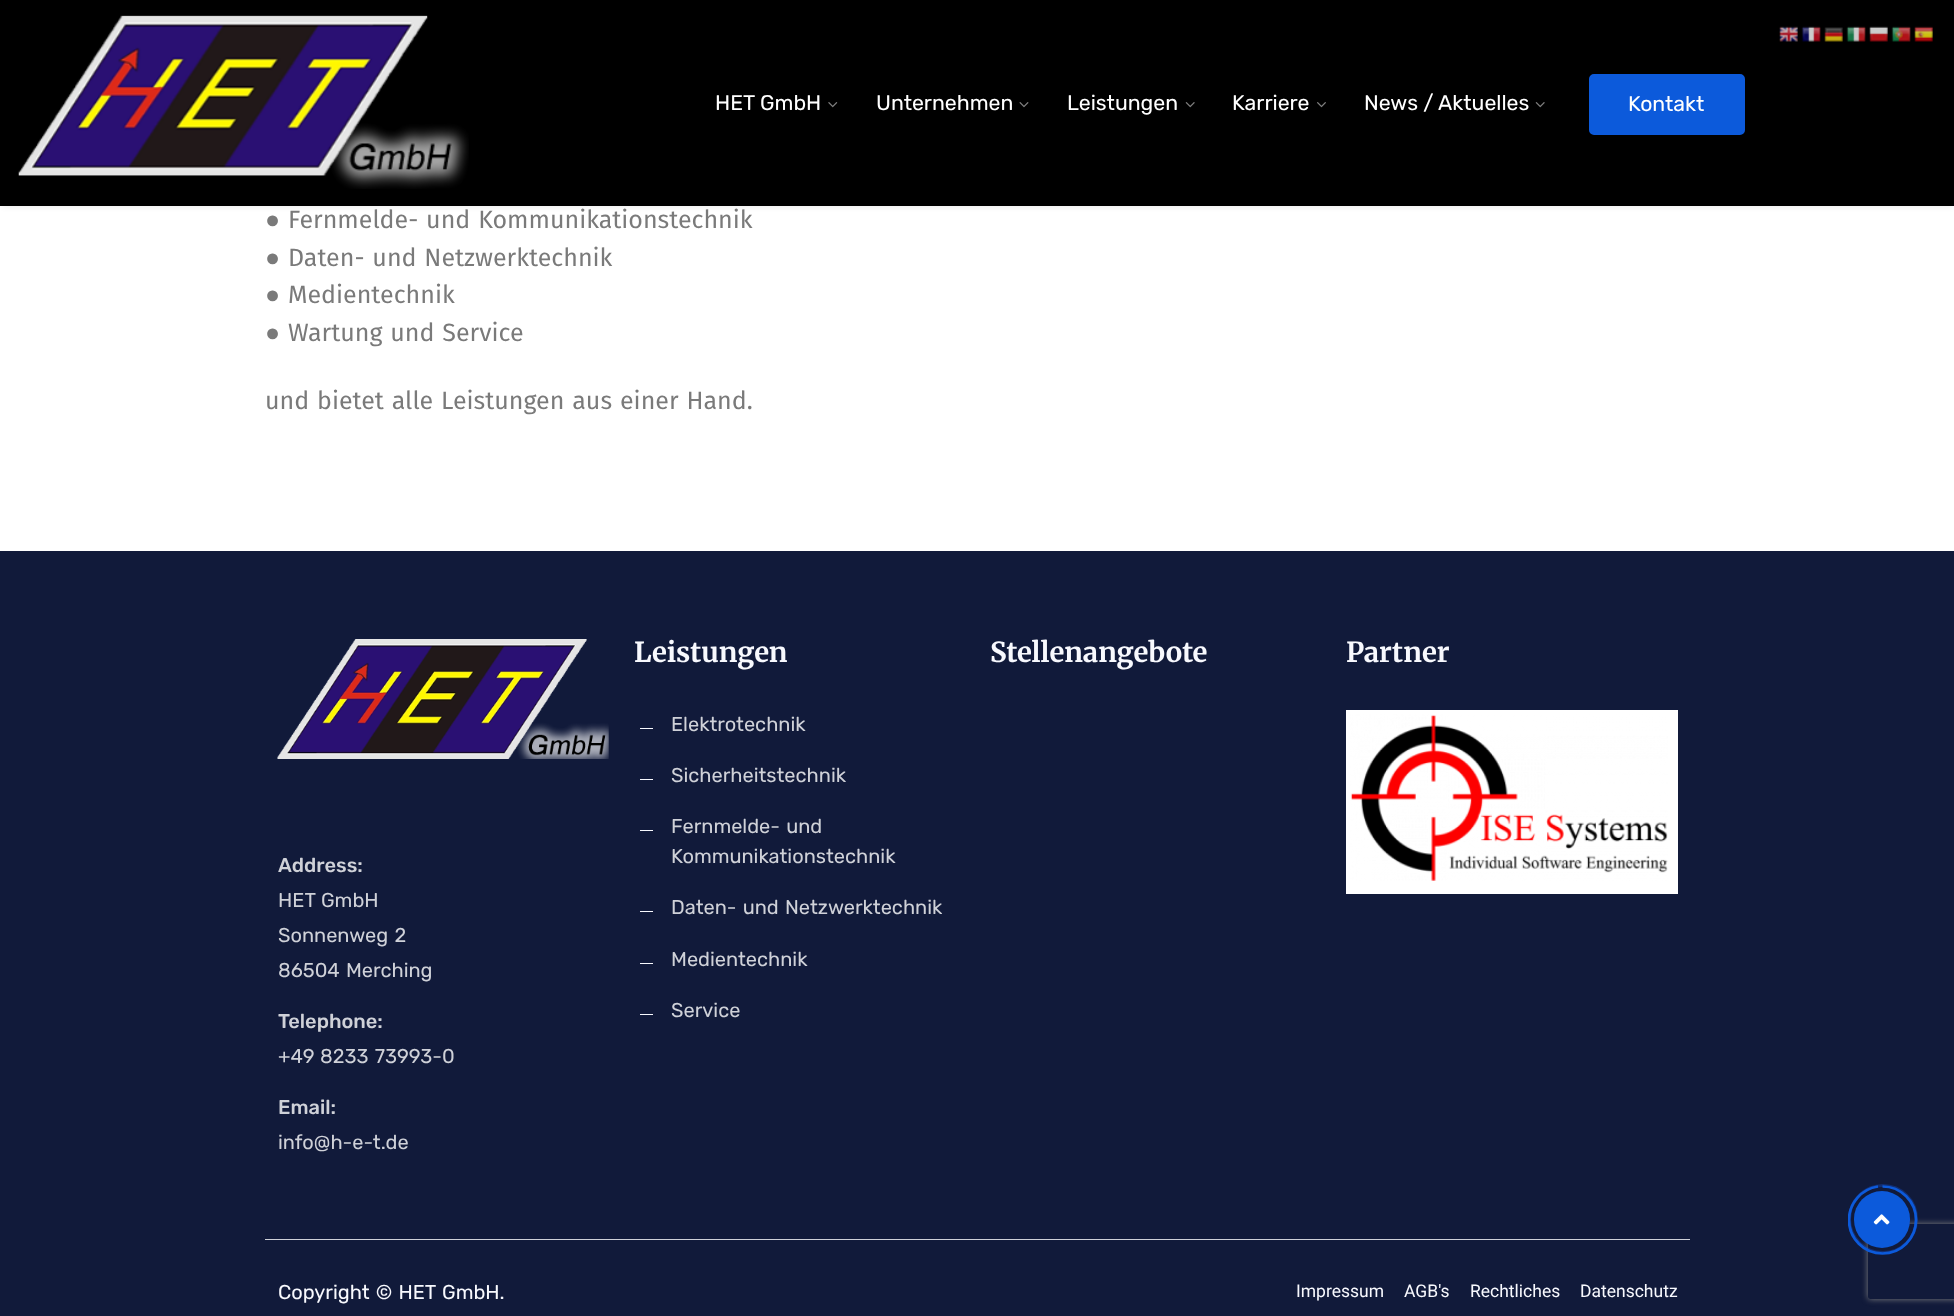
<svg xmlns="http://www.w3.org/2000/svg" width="1954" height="1316">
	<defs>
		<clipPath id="clip1"><path d="M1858 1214H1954V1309H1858ZM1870.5 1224H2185.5C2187 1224 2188 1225 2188 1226.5V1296.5C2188 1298 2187 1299 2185.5 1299H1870.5C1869 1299 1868 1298 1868 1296.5V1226.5C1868 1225 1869 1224 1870.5 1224Z" clip-rule="evenodd" /></clipPath>
		<clipPath id="clip2"><rect x="1848" y="1185" width="70" height="70" /></clipPath>
	</defs>
	<rect width="100%" height="100%" fill="#FFFFFF" />
	<rect x="3" y="5" width="1950" height="201" fill="#000000" fill-opacity="0.1" filter="blur(3px)" />
	<rect x="0" y="0" width="1954" height="206" fill="#000000" />
	<image x="1779" y="26" width="19" height="16" href="assets/img1.png" />
	<image x="1801" y="26" width="20" height="16" href="assets/img2.png" />
	<image x="1824" y="27" width="19" height="15" href="assets/img3.png" />
	<image x="1846" y="26" width="20" height="16" href="assets/img4.png" />
	<image x="1869" y="26" width="19" height="16" href="assets/img5.png" />
	<image x="1891" y="26" width="20" height="16" href="assets/img6.png" />
	<image x="1914" y="26" width="19" height="16" href="assets/img7.png" />
	<image x="18" y="15" width="451" height="174" href="assets/img8.png" />
	<text x="715" y="110" font-family="Rubik" font-size="21.25" fill="#FFFFFF">HET GmbH</text>
	<image x="828" y="102" width="10" height="6" href="assets/img9.png" />
	<text x="876" y="110" font-family="Rubik" font-size="21.25" fill="#FFFFFF">Unternehmen</text>
	<image x="1019" y="102" width="10" height="6" href="assets/img10.png" />
	<text x="1067" y="110" font-family="Rubik" font-size="21.25" fill="#FFFFFF">Leistungen</text>
	<image x="1185" y="102" width="10" height="6" href="assets/img11.png" />
	<text x="1232" y="110" font-family="Rubik" font-size="21.25" fill="#FFFFFF">Karriere</text>
	<image x="1317" y="102" width="9" height="6" href="assets/img12.png" />
	<text x="1364" y="110" font-family="Rubik" font-size="21.25" fill="#FFFFFF">News / Aktuelles</text>
	<image x="1535" y="102" width="10" height="6" href="assets/img11.png" />
	<rect x="1590.5" y="75.5" width="153" height="58" rx="3.5" fill="#0C5ADB" stroke="#0C5ADB" stroke-width="3" />
	<text x="1628" y="111" font-family="Rubik" font-size="21.25" fill="#FFFFFF">Kontakt</text>
	<text x="265" y="228" font-family="Liberation Sans" font-size="25" fill="#7A7A7A">●</text>
	<text x="288" y="228" word-spacing="1.25" font-family="Fira Sans" font-size="25" fill="#7A7A7A">Fernmelde- und Kommunikationstechnik</text>
	<text x="265" y="266" font-family="Liberation Sans" font-size="25" fill="#7A7A7A">●</text>
	<text x="288" y="266" word-spacing="1.25" font-family="Fira Sans" font-size="25" fill="#7A7A7A">Daten- und Netzwerktechnik</text>
	<text x="265" y="303" font-family="Liberation Sans" font-size="25" fill="#7A7A7A">●</text>
	<text x="288" y="303" font-family="Fira Sans" font-size="25" fill="#7A7A7A">Medientechnik</text>
	<text x="265" y="341" font-family="Liberation Sans" font-size="25" fill="#7A7A7A">●</text>
	<g font-family="Fira Sans" font-size="25" fill="#7A7A7A">
		<text x="288" y="341" word-spacing="1.25">Wartung und Service</text>
		<text x="265" y="409" word-spacing="1.25">und bietet alle Leistungen aus einer Hand.</text>
	</g>
	<rect x="0" y="551" width="1954" height="765" fill="#111A3A" />
	<text x="634" y="662" font-family="Merriweather" font-size="27.5" font-weight="700" fill="#F8F9FE">Leistungen</text>
	<rect x="640" y="728" width="13" height="1" fill="#F8F9FE" />
	<text x="671" y="731" font-family="Rubik" font-size="20" fill="#CFD1D8">Elektrotechnik</text>
	<rect x="640" y="779" width="13" height="1" fill="#F8F9FE" />
	<text x="671" y="782" font-family="Rubik" font-size="20" fill="#CFD1D8">Sicherheitstechnik</text>
	<rect x="640" y="830" width="13" height="1" fill="#F8F9FE" />
	<g font-family="Rubik" font-size="20" fill="#CFD1D8">
		<text x="671" y="833" word-spacing="1.25">Fernmelde- und</text>
		<text x="671" y="863">Kommunikationstechnik</text>
	</g>
	<rect x="640" y="911" width="13" height="1" fill="#F8F9FE" />
	<text x="671" y="914" word-spacing="1.25" font-family="Rubik" font-size="20" fill="#CFD1D8">Daten- und Netzwerktechnik</text>
	<rect x="640" y="963" width="13" height="1" fill="#F8F9FE" />
	<text x="671" y="966" font-family="Rubik" font-size="20" fill="#CFD1D8">Medientechnik</text>
	<rect x="640" y="1014" width="13" height="1" fill="#F8F9FE" />
	<text x="671" y="1017" font-family="Rubik" font-size="20" fill="#CFD1D8">Service</text>
	<g font-family="Merriweather" font-size="27.5" font-weight="700" fill="#F8F9FE">
		<text x="990" y="662">Stellenangebote</text>
		<text x="1346" y="662">Partner</text>
	</g>
	<rect x="1346" y="710" width="332" height="184" fill="#FFFFFF" />
	<image x="1350" y="714" width="318" height="167" href="assets/img13.png" />
	<image x="277" y="639" width="332" height="120" href="assets/img14.png" />
	<text x="278" y="872" font-family="Rubik" font-size="20" font-weight="500" fill="#CFD1D8">Address:</text>
	<g font-family="Rubik" font-size="20" fill="#CFD1D8">
		<text x="278" y="907">HET</text>
		<text x="321" y="907">GmbH</text>
		<text x="278" y="942" word-spacing="1.25">Sonnenweg 2</text>
		<text x="278" y="977" word-spacing="1.25">86504 Merching</text>
	</g>
	<text x="278" y="1028" font-family="Rubik" font-size="20" font-weight="500" fill="#CFD1D8">Telephone:</text>
	<g font-family="Rubik" font-size="20" fill="#CFD1D8">
		<text x="278" y="1063">+49</text>
		<text x="320" y="1063" word-spacing="1.25">8233 73993-0</text>
	</g>
	<text x="278" y="1114" font-family="Rubik" font-size="20" font-weight="500" fill="#CFD1D8">Email:</text>
	<text x="278" y="1149" font-family="Rubik" font-size="20" fill="#CFD1D8">info@h-e-t.de</text>
	<rect x="265" y="1239" width="1425" height="1" fill="#CFD1D8" />
	<text x="278" y="1299" word-spacing="1.25" font-family="Rubik" font-size="20" fill="#F8F9FE">Copyright © HET GmbH.</text>
	<g font-family="Roboto" font-size="17.5" fill="#F8F9FE">
		<text x="1296" y="1297">Impressum</text>
		<text x="1404" y="1297">AGB's</text>
		<text x="1470" y="1297">Rechtliches</text>
		<text x="1580" y="1297">Datenschutz</text>
	</g>
	<g clip-path="url(#clip1)">
		<rect x="1868" y="1224" width="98" height="75" rx="2.5" fill="#808080" filter="blur(3px)" />
	</g>
	<circle cx="1883" cy="1219" r="33.5" fill="none" stroke="#165DF5" stroke-opacity="0.3" stroke-width="3" />
	<g clip-path="url(#clip2)">
		<path d="M1882.5 1186.5C1901 1186.5 1916 1201.5 1916 1220C1916 1238.5 1901 1253.5 1882.5 1253.5C1864 1253.5 1849 1238.5 1849 1220C1849 1203 1861.5 1189 1878 1186.5" fill="none" stroke="#0C5ADB" stroke-width="2.7" />
	</g>
	<rect x="1854" y="1191" width="56" height="57" rx="28" fill="#0C5ADB" />
	<image x="1873" y="1214" width="17" height="11" href="assets/img15.png" />
</svg>
